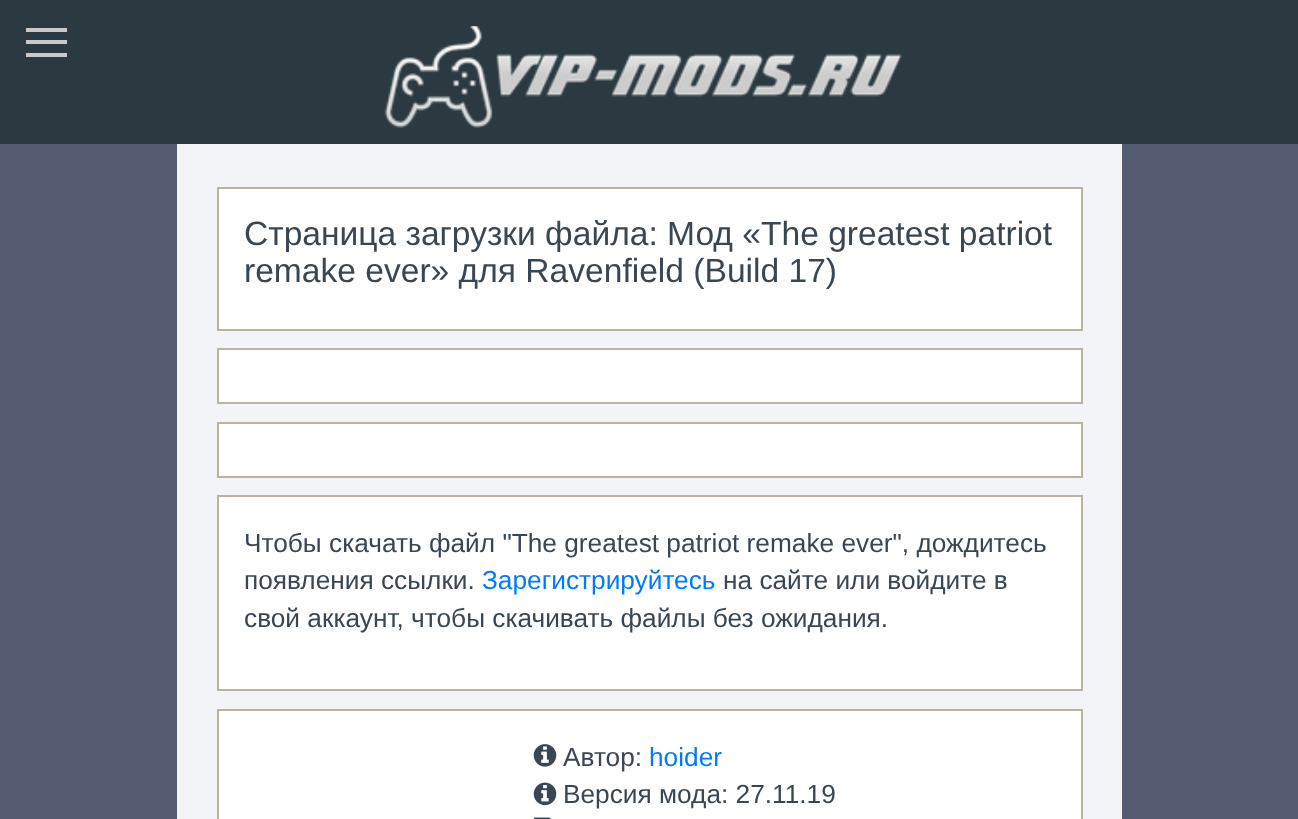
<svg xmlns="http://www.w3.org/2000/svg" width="1298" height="819">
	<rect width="100%" height="100%" fill="#535C71" />
	<rect x="0" y="0" width="1298" height="144" fill="#2B3A40" />
	<image x="384" y="26" width="518" height="102" href="assets/img1.png" />
	<rect x="26" y="40" width="41" height="4" fill="#C9C9C9" />
	<rect x="26" y="28" width="41" height="4" fill="#C9C9C9" />
	<rect x="26" y="53" width="41" height="4" fill="#C9C9C9" />
	<rect x="177" y="144" width="945" height="675" fill="#F2F4F7" />
	<rect x="218" y="188" width="864" height="142" fill="#FFFFFF" stroke="#BAB3A1" stroke-width="2" />
	<g font-family="Liberation Sans" font-size="33.6" fill="#3A4651">
		<text x="244" y="245">Страница загрузки файла: Мод «The greatest patriot</text>
		<text x="244" y="282">remake ever» для Ravenfield (Build 17)</text>
	</g>
	<rect x="218" y="349" width="864" height="54" fill="#FFFFFF" stroke="#BAB3A1" stroke-width="2" />
	<rect x="218" y="423" width="864" height="54" fill="#FFFFFF" stroke="#BAB3A1" stroke-width="2" />
	<rect x="218" y="496" width="864" height="194" fill="#FFFFFF" stroke="#BAB3A1" stroke-width="2" />
	<g font-family="Liberation Sans" font-size="26.25" fill="#3A4651">
		<text x="244" y="552">Чтобы скачать файл "The greatest patriot remake ever", дождитесь</text>
		<text x="244" y="589">появления ссылки.</text>
	</g>
	<text x="482" y="589" font-family="Liberation Sans" font-size="26.25" fill="#007BFF">Зарегистрируйтесь</text>
	<g font-family="Liberation Sans" font-size="26.25" fill="#3A4651">
		<text x="723" y="589">на сайте или войдите в</text>
		<text x="244" y="627">свой аккаунт, чтобы скачивать файлы без ожидания.</text>
	</g>
	<rect x="218" y="710" width="864" height="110" fill="#FFFFFF" stroke="#BAB3A1" stroke-width="2" />
	<image x="533" y="744" width="24" height="23" href="assets/img2.png" />
	<text x="563" y="766" font-family="Liberation Sans" font-size="26.25" fill="#3A4651">Автор:</text>
	<text x="649" y="766" font-family="Liberation Sans" font-size="26.25" fill="#007BFF">hoider</text>
	<image x="533" y="782" width="24" height="24" href="assets/img3.png" />
	<text x="563" y="803" font-family="Liberation Sans" font-size="26.25" fill="#3A4651">Версия мода: 27.11.19</text>
	<image x="533" y="817" width="18" height="2" href="assets/img4.png" />
</svg>
